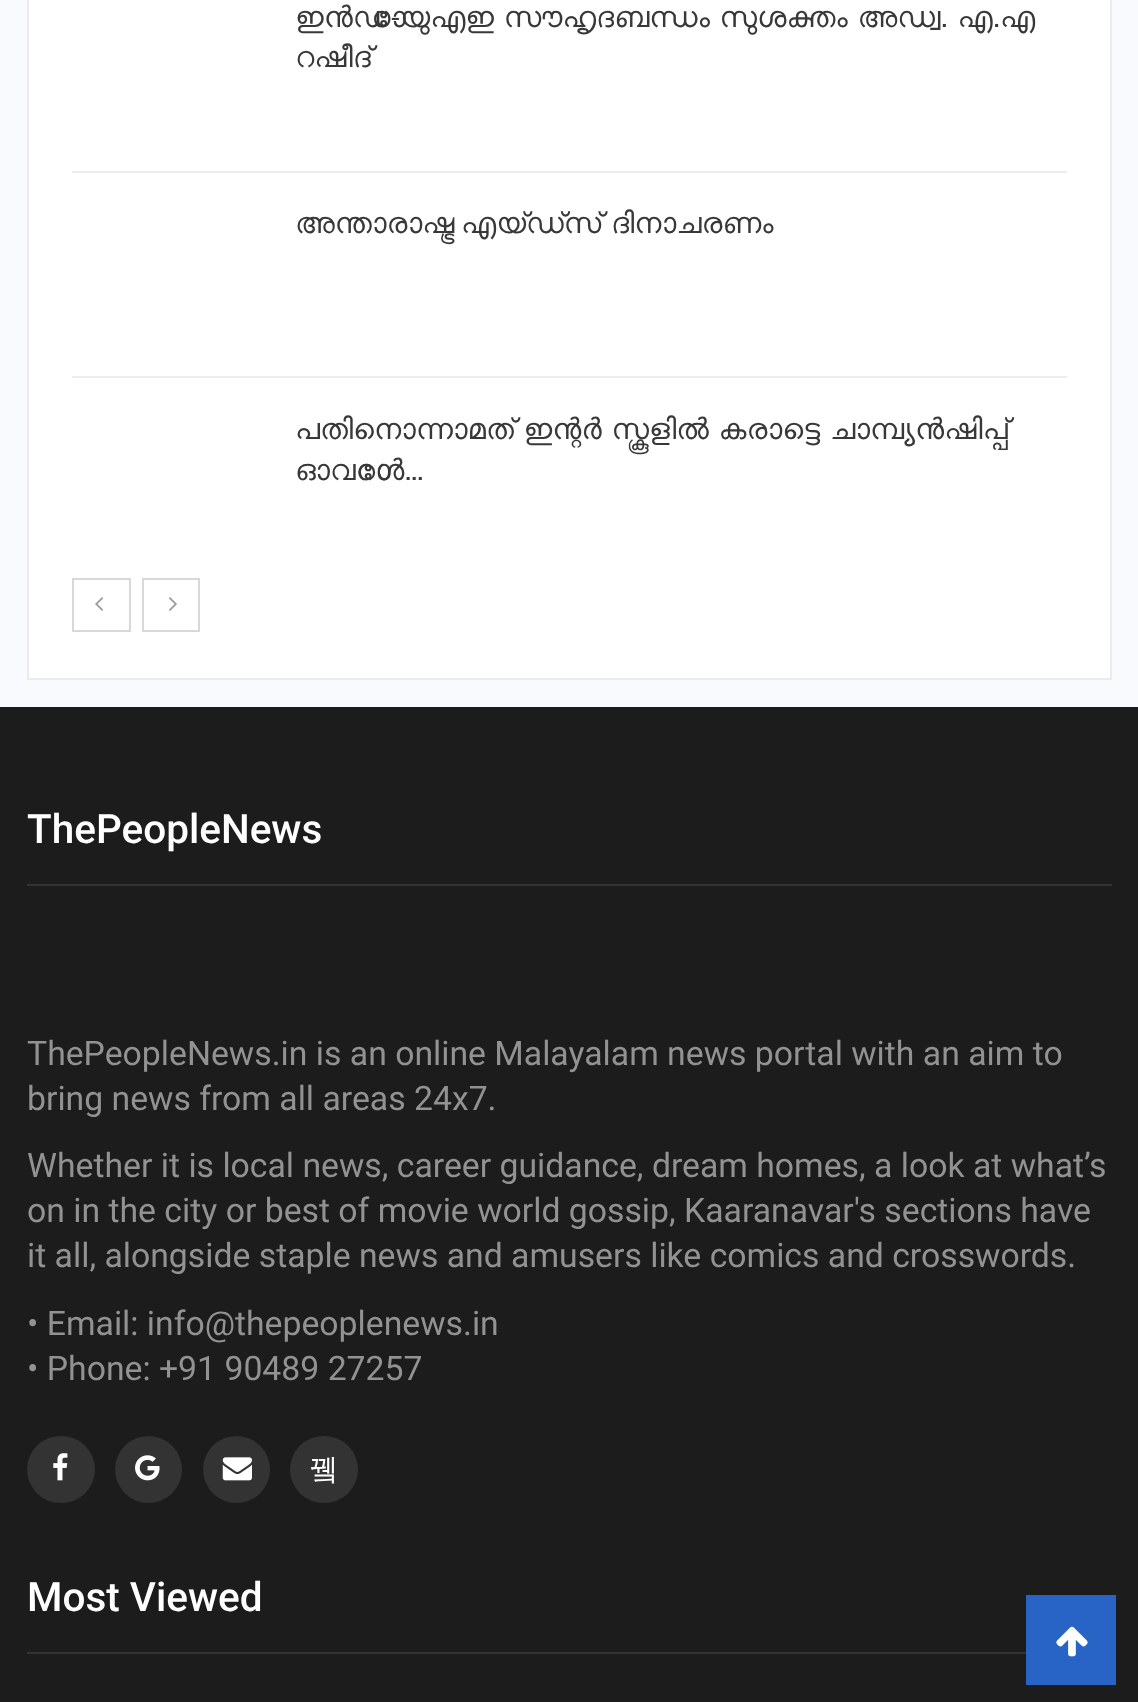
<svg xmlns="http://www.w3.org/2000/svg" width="1138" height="1702">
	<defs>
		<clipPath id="clip1"><rect x="72" y="0" width="995" height="569" /></clipPath>
	</defs>
	<rect width="100%" height="100%" fill="#F9FAFD" />
	<rect x="28" y="-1" width="1083" height="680" fill="#FFFFFF" stroke="#EBEBEB" stroke-width="2" />
	<rect x="72" y="171" width="995" height="2" fill="#EDEDED" />
	<g clip-path="url(#clip1)">
		<text x="295" y="27" word-spacing="-2" font-family="FreeSans" font-size="29.25" fill="#383838">ഇൻഡോ-യുഎഇ സൗഹൃദബന്ധം സുശക്തം അഡ്വ. എ.എ</text>
	</g>
	<text x="295" y="67" font-family="FreeSans" font-size="29.25" fill="#383838">റഷീദ്</text>
	<rect x="72" y="376" width="995" height="2" fill="#EDEDED" />
	<g font-family="FreeSans" font-size="29.25" fill="#383838">
		<text x="295" y="233">അന്താരാഷ്ട്ര</text>
		<text x="461" y="233" word-spacing="-2">എയ്ഡ്സ് ദിനാചരണം</text>
		<text x="295" y="439" word-spacing="-2">പതിനൊന്നാമത് ഇന്റർ സ്കൂളിൽ കരാട്ടെ ചാമ്പ്യൻഷിപ്പ്</text>
		<text x="295" y="480">ഓവറോൾ…</text>
	</g>
	<rect x="73" y="579" width="57" height="52" fill="none" stroke="#D8D8D8" stroke-width="2" />
	<image x="95" y="597" width="9" height="14" href="assets/img1.png" />
	<rect x="143" y="579" width="56" height="52" fill="none" stroke="#D8D8D8" stroke-width="2" />
	<image x="169" y="597" width="8" height="14" href="assets/img2.png" />
	<rect x="0" y="707" width="1138" height="995" fill="#1C1C1C" />
	<text x="27" y="843" font-family="Roboto" font-size="40.5" font-weight="500" fill="#FFFFFF">ThePeopleNews</text>
	<rect x="27" y="884" width="1085" height="2" fill="#333333" />
	<g font-family="Roboto" font-size="33.75" fill="#929292">
		<text x="27" y="1065">ThePeopleNews.in is an online Malayalam news portal with an aim to</text>
		<text x="27" y="1110">bring news from all areas 24x7.</text>
		<text x="27" y="1177">Whether it is local news, career guidance, dream homes, a look at what’s</text>
		<text x="27" y="1222">on in the city or best of movie world gossip, Kaaranavar's sections have</text>
		<text x="27" y="1267">it all, alongside staple news and amusers like comics and crosswords.</text>
		<text x="27" y="1335">• Email: info@thepeoplenews.in</text>
		<text x="27" y="1380">• Phone: +91 90489 27257</text>
	</g>
	<rect x="27" y="1436" width="68" height="67" rx="33.5" fill="#333333" />
	<image x="53" y="1453" width="15" height="28" href="assets/img3.png" />
	<circle cx="148.5" cy="1469.5" r="33.5" fill="#333333" />
	<image x="135" y="1455" width="25" height="26" href="assets/img4.png" />
	<circle cx="236.5" cy="1469.5" r="33.5" fill="#333333" />
	<image x="222" y="1457" width="30" height="24" href="assets/img5.png" />
	<rect x="290" y="1436" width="68" height="67" rx="33.5" fill="#333333" />
	<text x="309" y="1479" font-family="WenQuanYi Zen Hei" font-size="29.25" font-weight="500" fill="#FFFFFF">뀈</text>
	<text x="27" y="1611" font-family="Roboto" font-size="40.5" font-weight="500" fill="#FFFFFF">Most Viewed</text>
	<rect x="27" y="1652" width="999" height="2" fill="#333333" />
	<rect x="1026" y="1595" width="90" height="90" fill="#2863C6" />
	<image x="1056" y="1626" width="32" height="31" href="assets/img6.png" />
</svg>
